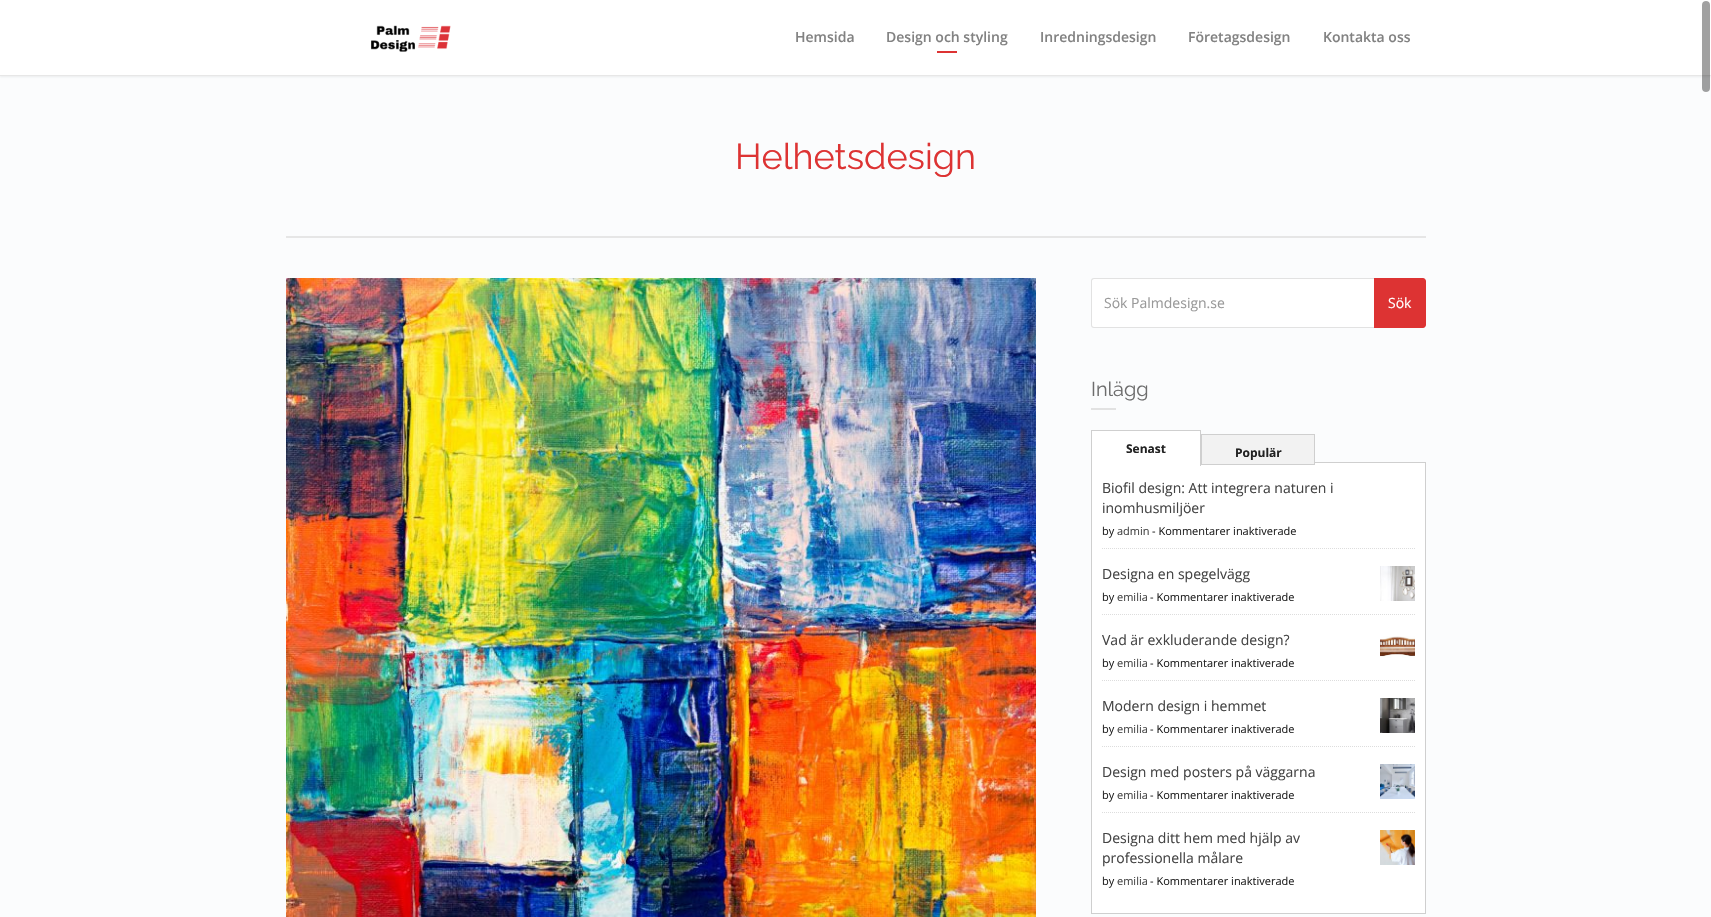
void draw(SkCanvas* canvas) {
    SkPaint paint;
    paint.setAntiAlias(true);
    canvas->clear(0xFFFBFCFD);
    paint.setColor(0x142B3033);
    paint.setMaskFilter(SkMaskFilter::MakeBlur(kNormal_SkBlurStyle, 1));
    canvas->drawRect(SkRect::MakeXYWH(0, 1, 1711, 76), paint);
    paint.setMaskFilter(nullptr);
    paint.setColor(0xFFFFFFFF);
    canvas->drawRect(SkRect::MakeXYWH(0, 0, 1711, 75), paint);
    paint.setColor(0xFFE7E7E7);
    canvas->drawRect(SkRect::MakeXYWH(0, 75, 1711, 1), paint);
    canvas->drawImageRect(SkImages::DeferredFromEncodedData(SkData::MakeFromFileName("img1.png")), SkRect::MakeXYWH(371, 25, 80, 27), SkSamplingOptions());
    SkFont font1(fontMgr->matchFamilyStyle("Open Sans", SkFontStyle(600, SkFontStyle::kNormal_Width, SkFontStyle::kUpright_Slant)), 14);
    font1.setSubpixel(true);
    paint.setColor(0xFF828282);
    canvas->drawString("Hemsida", 795, 42, font1, paint);
    canvas->drawString("Design och styling", 886, 42, font1, paint);
    paint.setColor(0xFFDD3333);
    canvas->drawRect(SkRect::MakeXYWH(937, 51, 20, 2), paint);
    paint.setColor(0xFF828282);
    canvas->drawString("Inredningsdesign", 1040, 42, font1, paint);
    canvas->drawString("Företagsdesign", 1188, 42, font1, paint);
    canvas->drawString("Kontakta oss", 1323, 42, font1, paint);
    paint.setColor(0x5E000000);
    canvas->drawRoundRect(SkRect::MakeXYWH(1702, 1, 8, 91), 4, 4, paint);
    paint.setStyle(SkPaint::kStroke_Style);
    paint.setStrokeWidth(1);
    paint.setColor(0x40FFFFFF);
    canvas->drawRoundRect(SkRect::MakeXYWH(1701.5f, 0.5f, 9, 92), 4.5f, 4.5f, paint);
    paint.setStyle(SkPaint::kFill_Style);
    paint.setColor(0xFFE6E6E6);
    canvas->drawRect(SkRect::MakeXYWH(286, 236, 1140, 2), paint);
    SkFont font2(fontMgr->matchFamilyStyle("Raleway", SkFontStyle::Normal()), 36);
    font2.setSubpixel(true);
    paint.setColor(0xFFDD3333);
    canvas->drawString("Helhetsdesign", 735, 169, font2, paint);
    canvas->drawImageRect(SkImages::DeferredFromEncodedData(SkData::MakeFromFileName("img2.png")), SkRect::MakeXYWH(286, 278, 750, 639), SkSamplingOptions());
    paint.setColor(0xFFFFFFFF);
    canvas->drawPath(SkPathBuilder().moveTo(1094, 278).lineTo(1374, 278).lineTo(1374, 328).lineTo(1094, 328).cubicTo(1092.5f, 328, 1091, 326.5f, 1091, 325).lineTo(1091, 281).cubicTo(1091, 279.5f, 1092.5f, 278, 1094, 278).close().detach(), paint);
    paint.setColor(0xFFE2E2E2);
    canvas->drawPath(SkPathBuilder(SkPathFillType::kEvenOdd).moveTo(1094, 278).lineTo(1374, 278).lineTo(1374, 328).lineTo(1094, 328).cubicTo(1092, 328, 1091, 327, 1091, 325).lineTo(1091, 281).cubicTo(1091, 279, 1092, 278, 1094, 278).close().moveTo(1094, 279).lineTo(1374, 279).lineTo(1374, 327).lineTo(1094, 327).cubicTo(1093, 327, 1092, 326, 1092, 325).lineTo(1092, 281).cubicTo(1092, 280, 1093, 279, 1094, 279).close().detach(), paint);
    SkFont font3(fontMgr->matchFamilyStyle("Open Sans", SkFontStyle::Normal()), 14);
    font3.setSubpixel(true);
    paint.setColor(0xFF999999);
    canvas->drawString("Sök Palmdesign.se", 1104, 308, font3, paint);
    paint.setColor(0xFFDD3333);
    canvas->drawPath(SkPathBuilder().moveTo(1374, 278).lineTo(1423, 278).cubicTo(1424.5f, 278, 1426, 279.5f, 1426, 281).lineTo(1426, 325).cubicTo(1426, 326.5f, 1424.5f, 328, 1423, 328).lineTo(1374, 328).close().detach(), paint);
    paint.setColor(0xFFFFFFFF);
    canvas->drawString("Sök", 1388, 308, font3, paint);
    SkFont font4(fontMgr->matchFamilyStyle("Raleway", SkFontStyle::Normal()), 20);
    font4.setSubpixel(true);
    paint.setColor(0xFF6D6D6D);
    canvas->drawString("Inlägg", 1091, 396, font4, paint);
    paint.setColor(0xFFE2E2E2);
    canvas->drawRect(SkRect::MakeXYWH(1091, 408, 25, 2), paint);
    paint.setColor(0xFFCFCFCF);
    canvas->drawRect(SkRect::MakeXYWH(1315, 462, 111, 1), paint);
    paint.setColor(0xFFFFFFFF);
    canvas->drawRect(SkRect::MakeXYWH(1092, 431, 108, 32), paint);
    paint.setColor(0xFFCFCFCF);
    canvas->drawRect(SkRect::MakeXYWH(1091, 430, 110, 1), paint);
    paint.setColor(0xFFFFFFFF);
    canvas->drawRect(SkRect::MakeXYWH(1092, 463, 333, 450), paint);
    paint.setColor(0xFFCFCFCF);
    canvas->drawRect(SkRect::MakeXYWH(1200, 430, 1, 36), paint);
    canvas->drawRect(SkRect::MakeXYWH(1425, 463, 1, 451), paint);
    canvas->drawRect(SkRect::MakeXYWH(1091, 913, 335, 1), paint);
    canvas->drawRect(SkRect::MakeXYWH(1091, 463, 1, 451), paint);
    canvas->drawRect(SkRect::MakeXYWH(1091, 430, 1, 36), paint);
    SkFont font5(fontMgr->matchFamilyStyle("Open Sans", SkFontStyle::Bold()), 12);
    font5.setSubpixel(true);
    paint.setColor(0xFF222222);
    canvas->drawString("Senast", 1126, 453, font5, paint);
    paint.setColor(0xFFF2F2F2);
    canvas->drawRect(SkRect::MakeXYWH(1201.5f, 434.5f, 113, 30), paint);
    paint.setStyle(SkPaint::kStroke_Style);
    paint.setColor(0xFFCFCFCF);
    canvas->drawRect(SkRect::MakeXYWH(1201.5f, 434.5f, 113, 30), paint);
    paint.setStyle(SkPaint::kFill_Style);
    paint.setColor(0xFF222222);
    canvas->drawString("Populär", 1235, 457, font5, paint);
    paint.setStyle(SkPaint::kStroke_Style);
    paint.setColor(0xFFDDDDDD);
    paint.setPathEffect(SkDashPathEffect::Make({{1, 1}}, 0));
    canvas->drawPath(SkPathBuilder().moveTo(1102, 548.5f).lineTo(1415, 548.5f).detach(), paint);
    paint.setPathEffect(nullptr);
    paint.setStyle(SkPaint::kFill_Style);
    paint.setColor(0xFF444444);
    canvas->drawString("Biofil design: Att integrera naturen i", 1102, 493, font3, paint);
    canvas->drawString("inomhusmiljöer", 1102, 513, font3, paint);
    SkFont font6(fontMgr->matchFamilyStyle("Open Sans", SkFontStyle::Normal()), 11);
    font6.setSubpixel(true);
    paint.setColor(0xFF222222);
    canvas->drawString("by", 1102, 535, font6, paint);
    paint.setColor(0xFF444444);
    canvas->drawString("admin", 1117, 535, font6, paint);
    paint.setColor(0xFF222222);
    canvas->drawString("- Kommentarer inaktiverade", 1152, 535, font6, paint);
    paint.setStyle(SkPaint::kStroke_Style);
    paint.setColor(0xFFDDDDDD);
    paint.setPathEffect(SkDashPathEffect::Make({{1, 1}}, 0));
    canvas->drawPath(SkPathBuilder().moveTo(1102, 614.5f).lineTo(1415, 614.5f).detach(), paint);
    paint.setPathEffect(nullptr);
    paint.setStyle(SkPaint::kFill_Style);
    paint.setColor(0xFF444444);
    canvas->drawString("Designa en spegelvägg", 1102, 579, font3, paint);
    canvas->drawImageRect(SkImages::DeferredFromEncodedData(SkData::MakeFromFileName("img3.png")), SkRect::MakeXYWH(1380, 566, 35, 35), SkSamplingOptions());
    paint.setColor(0xFF222222);
    canvas->drawString("by", 1102, 601, font6, paint);
    paint.setColor(0xFF444444);
    canvas->drawString("emilia", 1117, 601, font6, paint);
    paint.setColor(0xFF222222);
    canvas->drawString("- Kommentarer inaktiverade", 1150, 601, font6, paint);
    paint.setStyle(SkPaint::kStroke_Style);
    paint.setColor(0xFFDDDDDD);
    paint.setPathEffect(SkDashPathEffect::Make({{1, 1}}, 0));
    canvas->drawPath(SkPathBuilder().moveTo(1102, 680.5f).lineTo(1415, 680.5f).detach(), paint);
    paint.setPathEffect(nullptr);
    paint.setStyle(SkPaint::kFill_Style);
    paint.setColor(0xFF444444);
    canvas->drawString("Vad är exkluderande design?", 1102, 645, font3, paint);
    canvas->drawImageRect(SkImages::DeferredFromEncodedData(SkData::MakeFromFileName("img4.png")), SkRect::MakeXYWH(1380, 636, 35, 22), SkSamplingOptions());
    paint.setColor(0xFF222222);
    canvas->drawString("by", 1102, 667, font6, paint);
    paint.setColor(0xFF444444);
    canvas->drawString("emilia", 1117, 667, font6, paint);
    paint.setColor(0xFF222222);
    canvas->drawString("- Kommentarer inaktiverade", 1150, 667, font6, paint);
    paint.setStyle(SkPaint::kStroke_Style);
    paint.setColor(0xFFDDDDDD);
    paint.setPathEffect(SkDashPathEffect::Make({{1, 1}}, 0));
    canvas->drawPath(SkPathBuilder().moveTo(1102, 746.5f).lineTo(1415, 746.5f).detach(), paint);
    paint.setPathEffect(nullptr);
    paint.setStyle(SkPaint::kFill_Style);
    paint.setColor(0xFF444444);
    canvas->drawString("Modern design i hemmet", 1102, 711, font3, paint);
    canvas->drawImageRect(SkImages::DeferredFromEncodedData(SkData::MakeFromFileName("img5.png")), SkRect::MakeXYWH(1380, 698, 35, 35), SkSamplingOptions());
    paint.setColor(0xFF222222);
    canvas->drawString("by", 1102, 733, font6, paint);
    paint.setColor(0xFF444444);
    canvas->drawString("emilia", 1117, 733, font6, paint);
    paint.setColor(0xFF222222);
    canvas->drawString("- Kommentarer inaktiverade", 1150, 733, font6, paint);
    paint.setStyle(SkPaint::kStroke_Style);
    paint.setColor(0xFFDDDDDD);
    paint.setPathEffect(SkDashPathEffect::Make({{1, 1}}, 0));
    canvas->drawPath(SkPathBuilder().moveTo(1102, 812.5f).lineTo(1415, 812.5f).detach(), paint);
    paint.setPathEffect(nullptr);
    paint.setStyle(SkPaint::kFill_Style);
    paint.setColor(0xFF444444);
    canvas->drawString("Design med posters på väggarna", 1102, 777, font3, paint);
    canvas->drawImageRect(SkImages::DeferredFromEncodedData(SkData::MakeFromFileName("img6.png")), SkRect::MakeXYWH(1380, 764, 35, 35), SkSamplingOptions());
    paint.setColor(0xFF222222);
    canvas->drawString("by", 1102, 799, font6, paint);
    paint.setColor(0xFF444444);
    canvas->drawString("emilia", 1117, 799, font6, paint);
    paint.setColor(0xFF222222);
    canvas->drawString("- Kommentarer inaktiverade", 1150, 799, font6, paint);
    paint.setColor(0xFF444444);
    canvas->drawString("Designa ditt hem med hjälp av", 1102, 843, font3, paint);
    canvas->drawImageRect(SkImages::DeferredFromEncodedData(SkData::MakeFromFileName("img7.png")), SkRect::MakeXYWH(1380, 830, 35, 35), SkSamplingOptions());
    canvas->drawString("professionella målare", 1102, 863, font3, paint);
    paint.setColor(0xFF222222);
    canvas->drawString("by", 1102, 885, font6, paint);
    paint.setColor(0xFF444444);
    canvas->drawString("emilia", 1117, 885, font6, paint);
    paint.setColor(0xFF222222);
    canvas->drawString("- Kommentarer inaktiverade", 1150, 885, font6, paint);
}
